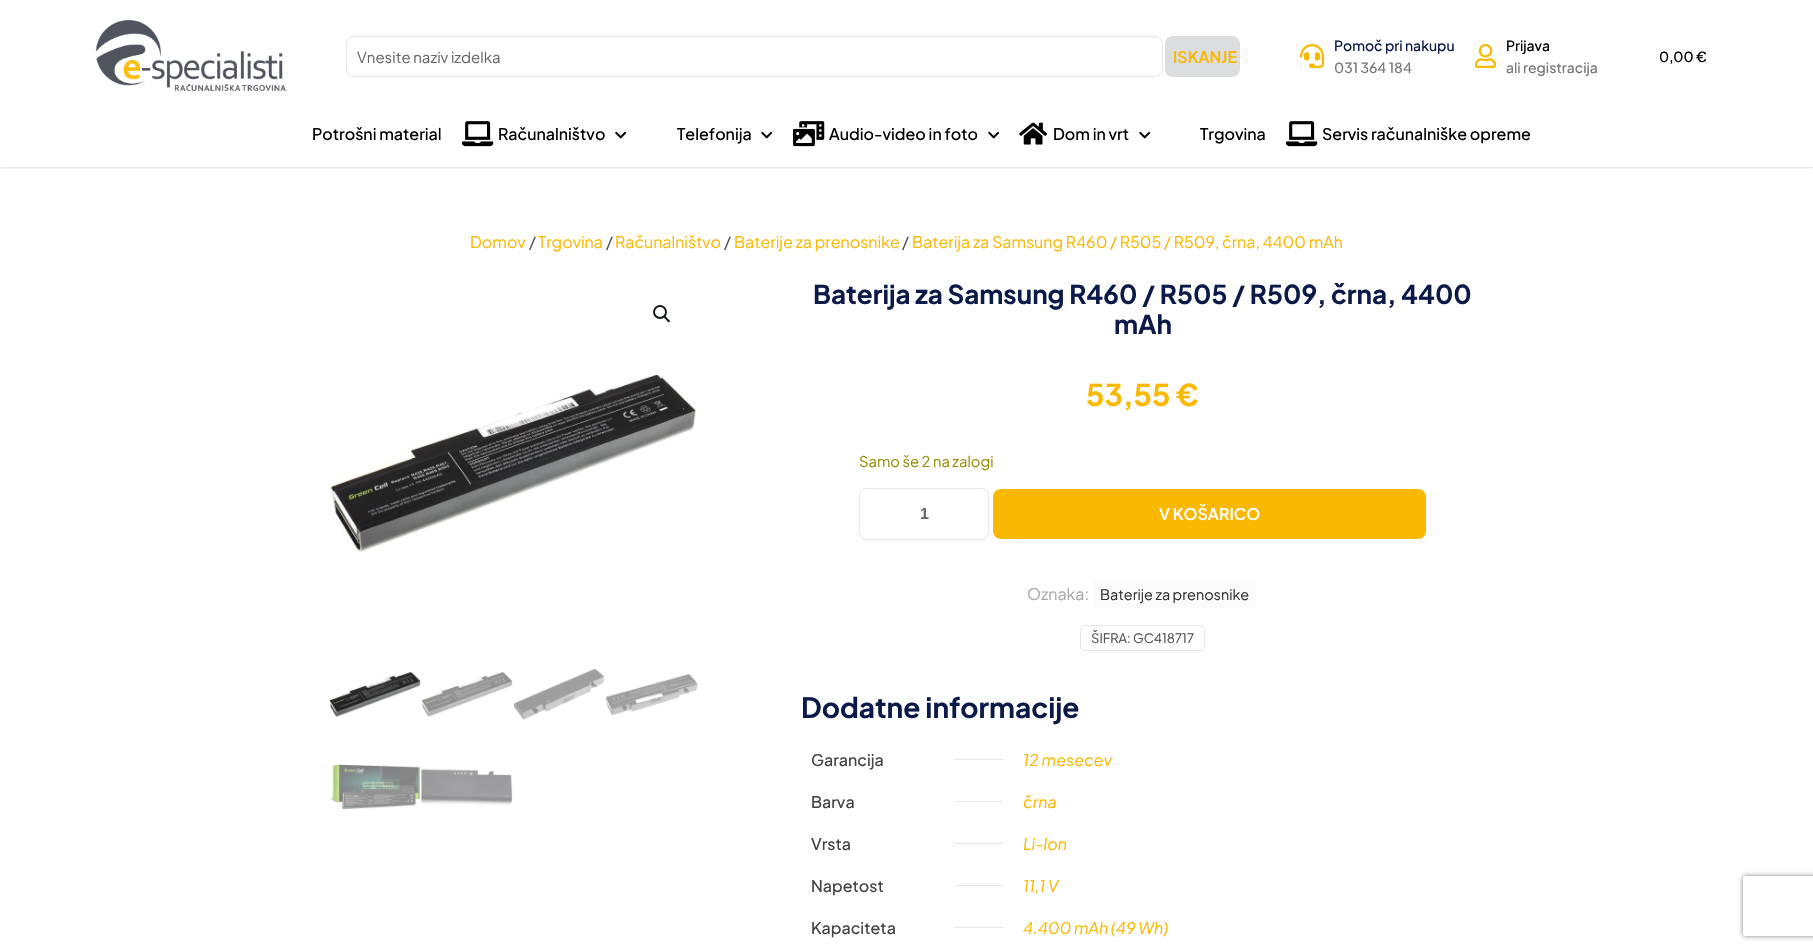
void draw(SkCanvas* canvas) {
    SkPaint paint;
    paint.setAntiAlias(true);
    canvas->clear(0xFFFFFFFF);
    canvas->drawImageRect(SkImages::DeferredFromEncodedData(SkData::MakeFromFileName("img1.png")), SkRect::MakeXYWH(95, 20, 191, 71), SkSamplingOptions());
    paint.setStyle(SkPaint::kStroke_Style);
    paint.setStrokeWidth(1);
    paint.setColor(0xFFE7E7E7);
    canvas->drawRoundRect(SkRect::MakeXYWH(346.5f, 36.5f, 816, 40), 7.5f, 7.5f, paint);
    SkFont font1(fontMgr->matchFamilyStyle("Plus Jakarta Sans", SkFontStyle::Normal()), 15);
    font1.setSubpixel(true);
    paint.setStyle(SkPaint::kFill_Style);
    paint.setColor(0xFF686868);
    canvas->drawString("Vnesite naziv izdelka", 357, 63, font1, paint);
    paint.setColor(0xFFDBDDDF);
    canvas->drawRoundRect(SkRect::MakeXYWH(1165, 36, 75, 41), 8, 8, paint);
    SkFont font2(fontMgr->matchFamilyStyle("Plus Jakarta Sans", SkFontStyle(600, SkFontStyle::kNormal_Width, SkFontStyle::kUpright_Slant)), 16);
    font2.setSubpixel(true);
    paint.setColor(0xFFFAB800);
    canvas->drawString("ISKANJE", 1173, 63, font2, paint);
    canvas->drawImageRect(SkImages::DeferredFromEncodedData(SkData::MakeFromFileName("img2.png")), SkRect::MakeXYWH(1300, 44, 24, 24), SkSamplingOptions());
    SkFont font3(fontMgr->matchFamilyStyle("Plus Jakarta Sans", SkFontStyle(500, SkFontStyle::kNormal_Width, SkFontStyle::kUpright_Slant)), 14);
    font3.setSubpixel(true);
    paint.setColor(0xFF0B1A48);
    canvas->drawString("Pomoč pri nakupu", 1334, 51, font3, paint);
    paint.setColor(0xFF797979);
    canvas->drawString("031 364 184", 1334, 73, font3, paint);
    canvas->drawImageRect(SkImages::DeferredFromEncodedData(SkData::MakeFromFileName("img3.png")), SkRect::MakeXYWH(1475, 44, 21, 24), SkSamplingOptions());
    paint.setColor(0xFF000000);
    canvas->drawString("Prijava", 1506, 51, font3, paint);
    paint.setColor(0xFF797979);
    canvas->drawString("ali registracija", 1506, 73, font3, paint);
    paint.setColor(0xFF000000);
    canvas->drawString("0,00 €", 1659, 62, font3, paint);
    canvas->save();
    canvas->clipRect(SkRect::MakeXYWH(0, 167, 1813, 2));
    paint.setColor(0x1F000000);
    paint.setMaskFilter(SkMaskFilter::MakeBlur(kNormal_SkBlurStyle, 1));
    canvas->drawRect(SkRect::MakeXYWH(0, 104, 1813, 64), paint);
    paint.setMaskFilter(nullptr);
    canvas->restore();
    SkFont font4(fontMgr->matchFamilyStyle("Plus Jakarta Sans", SkFontStyle(500, SkFontStyle::kNormal_Width, SkFontStyle::kUpright_Slant)), 16);
    font4.setSubpixel(true);
    paint.setColor(0xFF000000);
    canvas->drawString("Potrošni material", 312, 140, font4, paint);
    canvas->drawImageRect(SkImages::DeferredFromEncodedData(SkData::MakeFromFileName("img4.png")), SkRect::MakeXYWH(462, 121, 32, 26), SkSamplingOptions());
    canvas->drawString("Računalništvo", 498, 140, font4, paint);
    canvas->drawImageRect(SkImages::DeferredFromEncodedData(SkData::MakeFromFileName("img5.png")), SkRect::MakeXYWH(615, 131, 12, 8), SkSamplingOptions());
    canvas->drawString("Telefonija", 677, 140, font4, paint);
    canvas->drawImageRect(SkImages::DeferredFromEncodedData(SkData::MakeFromFileName("img5.png")), SkRect::MakeXYWH(761, 131, 12, 8), SkSamplingOptions());
    canvas->drawImageRect(SkImages::DeferredFromEncodedData(SkData::MakeFromFileName("img6.png")), SkRect::MakeXYWH(793, 121, 32, 26), SkSamplingOptions());
    canvas->drawString("Audio-video in foto", 829, 140, font4, paint);
    canvas->drawImageRect(SkImages::DeferredFromEncodedData(SkData::MakeFromFileName("img5.png")), SkRect::MakeXYWH(988, 131, 12, 8), SkSamplingOptions());
    canvas->drawImageRect(SkImages::DeferredFromEncodedData(SkData::MakeFromFileName("img7.png")), SkRect::MakeXYWH(1019, 122, 29, 23), SkSamplingOptions());
    canvas->drawString("Dom in vrt", 1053, 140, font4, paint);
    canvas->drawImageRect(SkImages::DeferredFromEncodedData(SkData::MakeFromFileName("img5.png")), SkRect::MakeXYWH(1139, 131, 12, 8), SkSamplingOptions());
    canvas->drawString("Trgovina", 1200, 140, font4, paint);
    canvas->drawImageRect(SkImages::DeferredFromEncodedData(SkData::MakeFromFileName("img4.png")), SkRect::MakeXYWH(1286, 121, 32, 26), SkSamplingOptions());
    canvas->drawString("Servis računalniške opreme", 1322, 140, font4, paint);
    SkFont font5(fontMgr->matchFamilyStyle("Plus Jakarta Sans", SkFontStyle::Normal()), 16);
    font5.setSubpixel(true);
    paint.setColor(0xFFFAB800);
    canvas->drawString("Domov", 470, 248, font5, paint);
    paint.setColor(0xFF4C4D52);
    canvas->drawString("/", 529, 248, font5, paint);
    paint.setColor(0xFFFAB800);
    canvas->drawString("Trgovina", 538, 248, font5, paint);
    paint.setColor(0xFF4C4D52);
    canvas->drawString("/", 606, 248, font5, paint);
    paint.setColor(0xFFFAB800);
    canvas->drawString("Računalništvo", 615, 248, font5, paint);
    paint.setColor(0xFF4C4D52);
    canvas->drawString("/", 724, 248, font5, paint);
    paint.setColor(0xFFFAB800);
    canvas->drawString("Baterije za prenosnike", 734, 248, font5, paint);
    paint.setColor(0xFF4C4D52);
    canvas->drawString("/", 902, 248, font5, paint);
    paint.setColor(0xFFFAB800);
    canvas->drawString("Baterija za Samsung R460 / R505 / R509, črna, 4400 mAh", 912, 248, font5, paint);
    paint.setStyle(SkPaint::kStroke_Style);
    paint.setStrokeWidth(2);
    paint.setColor(0xFF161922);
    canvas->drawCircle(660, 312, 6, paint);
    paint.setStyle(SkPaint::kFill_Style);
    canvas->drawPath(SkPathBuilder().moveTo(664, 316).cubicTo(665, 315, 667, 317.5f, 667.5f, 318.5f).cubicTo(668, 319, 671, 320.5f, 669.5f, 322).cubicTo(668.5f, 323, 666.5f, 320.5f, 666, 319.5f).cubicTo(665.5f, 319, 663, 317.5f, 664, 316).close().detach(), paint);
    canvas->drawImageRect(SkImages::DeferredFromEncodedData(SkData::MakeFromFileName("img8.png")), SkRect::MakeXYWH(330, 374, 367, 179), SkSamplingOptions());
    canvas->drawImageRect(SkImages::DeferredFromEncodedData(SkData::MakeFromFileName("img9.png")), SkRect::MakeXYWH(329, 672, 92, 45), SkSamplingOptions());
    canvas->drawImageRect(SkImages::DeferredFromEncodedData(SkData::MakeFromFileName("img10.png")), SkRect::MakeXYWH(421, 672, 92, 45), SkSamplingOptions());
    canvas->drawImageRect(SkImages::DeferredFromEncodedData(SkData::MakeFromFileName("img11.png")), SkRect::MakeXYWH(513, 668, 92, 52), SkSamplingOptions());
    canvas->drawImageRect(SkImages::DeferredFromEncodedData(SkData::MakeFromFileName("img12.png")), SkRect::MakeXYWH(605, 674, 93, 42), SkSamplingOptions());
    canvas->drawImageRect(SkImages::DeferredFromEncodedData(SkData::MakeFromFileName("img13.png")), SkRect::MakeXYWH(330, 764, 91, 46), SkSamplingOptions());
    canvas->drawImageRect(SkImages::DeferredFromEncodedData(SkData::MakeFromFileName("img14.png")), SkRect::MakeXYWH(421, 769, 92, 36), SkSamplingOptions());
    SkFont font6(fontMgr->matchFamilyStyle("Plus Jakarta Sans", SkFontStyle::Bold()), 26);
    font6.setSubpixel(true);
    paint.setColor(0xFF0B1A48);
    canvas->drawString("Baterija za Samsung R460 / R505 / R509, črna, 4400", 813, 304, font6, paint);
    canvas->drawString("mAh", 1114, 334, font6, paint);
    SkFont font7(fontMgr->matchFamilyStyle("Plus Jakarta Sans", SkFontStyle::Bold()), 30);
    font7.setSubpixel(true);
    paint.setColor(0xFFFAB800);
    canvas->drawString("53,55 €", 1086, 406, font7, paint);
    SkFont font8(fontMgr->matchFamilyStyle("Plus Jakarta Sans", SkFontStyle::Normal()), 14.75f);
    font8.setSubpixel(true);
    paint.setColor(0xFF958E09);
    canvas->drawString("Samo še 2 na zalogi", 859, 467, font8, paint);
    paint.setStyle(SkPaint::kStroke_Style);
    paint.setStrokeWidth(1);
    paint.setColor(0xFFE7E7E7);
    canvas->drawRoundRect(SkRect::MakeXYWH(859.5f, 488.5f, 129, 51), 7.5f, 7.5f, paint);
    SkFont font9(fontMgr->matchFamilyStyle("Liberation Sans", SkFontStyle::Bold()), 16);
    font9.setSubpixel(true);
    paint.setStyle(SkPaint::kFill_Style);
    paint.setColor(0xFF686868);
    canvas->drawString("1", 920, 519, font9, paint);
    paint.setColor(0xFFFAB800);
    canvas->drawRoundRect(SkRect::MakeXYWH(993, 489, 433, 50), 8, 8, paint);
    paint.setColor(0xFFFFFFFF);
    canvas->drawString("V KOŠARICO", 1159, 520, font2, paint);
    paint.setColor(0xFFA8A8A8);
    canvas->drawString("Oznaka:", 1027, 600, font5, paint);
    paint.setColor(0xFFFAFAFA);
    canvas->drawRoundRect(SkRect::MakeXYWH(1093, 580, 163, 28), 4, 4, paint);
    SkFont font10(fontMgr->matchFamilyStyle("Plus Jakarta Sans", SkFontStyle::Normal()), 14.4f);
    font10.setSubpixel(true);
    paint.setColor(0xFF323232);
    canvas->drawString("Baterije za prenosnike", 1100, 600, font10, paint);
    paint.setStyle(SkPaint::kStroke_Style);
    paint.setColor(0xFFE6E6E6);
    canvas->drawRoundRect(SkRect::MakeXYWH(1080.5f, 625.5f, 124, 25), 4.5f, 4.5f, paint);
    SkFont font11(fontMgr->matchFamilyStyle("Plus Jakarta Sans", SkFontStyle::Normal()), 13);
    font11.setSubpixel(true);
    paint.setStyle(SkPaint::kFill_Style);
    paint.setColor(0xFF4C4D52);
    canvas->drawString("ŠIFRA: GC418717", 1091, 643, font11, paint);
    SkFont font12(fontMgr->matchFamilyStyle("Plus Jakarta Sans", SkFontStyle::Bold()), 28);
    font12.setSubpixel(true);
    paint.setColor(0xFF0B1A48);
    canvas->drawString("Dodatne informacije", 801, 718, font12, paint);
    paint.setColor(0xFF444444);
    canvas->drawString("Garancija", 811, 766, font4, paint);
    paint.setColor(0xFFE6E6E6);
    canvas->drawRect(SkRect::MakeXYWH(955, 759, 48, 1), paint);
    SkFont font13(fontMgr->matchFamilyStyle("Plus Jakarta Sans", SkFontStyle::Italic()), 16);
    font13.setSubpixel(true);
    paint.setColor(0xFFFAB800);
    canvas->drawString("12 mesecev", 1023, 766, font13, paint);
    paint.setColor(0xFF444444);
    canvas->drawString("Barva", 811, 808, font4, paint);
    paint.setColor(0xFFE6E6E6);
    canvas->drawRect(SkRect::MakeXYWH(955, 801, 48, 1), paint);
    paint.setColor(0xFFFAB800);
    canvas->drawString("črna", 1023, 808, font13, paint);
    paint.setColor(0xFF444444);
    canvas->drawString("Vrsta", 811, 850, font4, paint);
    paint.setColor(0xFFE6E6E6);
    canvas->drawRect(SkRect::MakeXYWH(955, 843, 48, 1), paint);
    paint.setColor(0xFFFAB800);
    canvas->drawString("Li-Ion", 1023, 850, font13, paint);
    paint.setColor(0xFF444444);
    canvas->drawString("Napetost", 811, 892, font4, paint);
    paint.setColor(0xFFE6E6E6);
    canvas->drawRect(SkRect::MakeXYWH(955, 885, 48, 1), paint);
    paint.setColor(0xFFFAB800);
    canvas->drawString("11,1 V", 1023, 892, font13, paint);
    paint.setColor(0xFF444444);
    canvas->drawString("Kapaciteta", 811, 934, font4, paint);
    paint.setColor(0xFFE6E6E6);
    canvas->drawRect(SkRect::MakeXYWH(955, 927, 48, 1), paint);
    paint.setColor(0xFFFAB800);
    canvas->drawString("4.400 mAh (49 Wh)", 1023, 934, font13, paint);
    canvas->save();
    canvas->clipPath(SkPathBuilder(SkPathFillType::kEvenOdd).moveTo(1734, 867).lineTo(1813, 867).lineTo(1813, 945).lineTo(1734, 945).close().moveTo(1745, 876).lineTo(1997, 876).cubicTo(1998, 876, 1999, 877, 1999, 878).lineTo(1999, 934).cubicTo(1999, 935, 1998, 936, 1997, 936).lineTo(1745, 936).cubicTo(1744, 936, 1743, 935, 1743, 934).lineTo(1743, 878).cubicTo(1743, 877, 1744, 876, 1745, 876).close().detach(), true);
    paint.setColor(0xFF808080);
    paint.setMaskFilter(SkMaskFilter::MakeBlur(kNormal_SkBlurStyle, 2.5f));
    canvas->drawRoundRect(SkRect::MakeXYWH(1743, 876, 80, 60), 2, 2, paint);
    paint.setMaskFilter(nullptr);
    canvas->restore();
}
